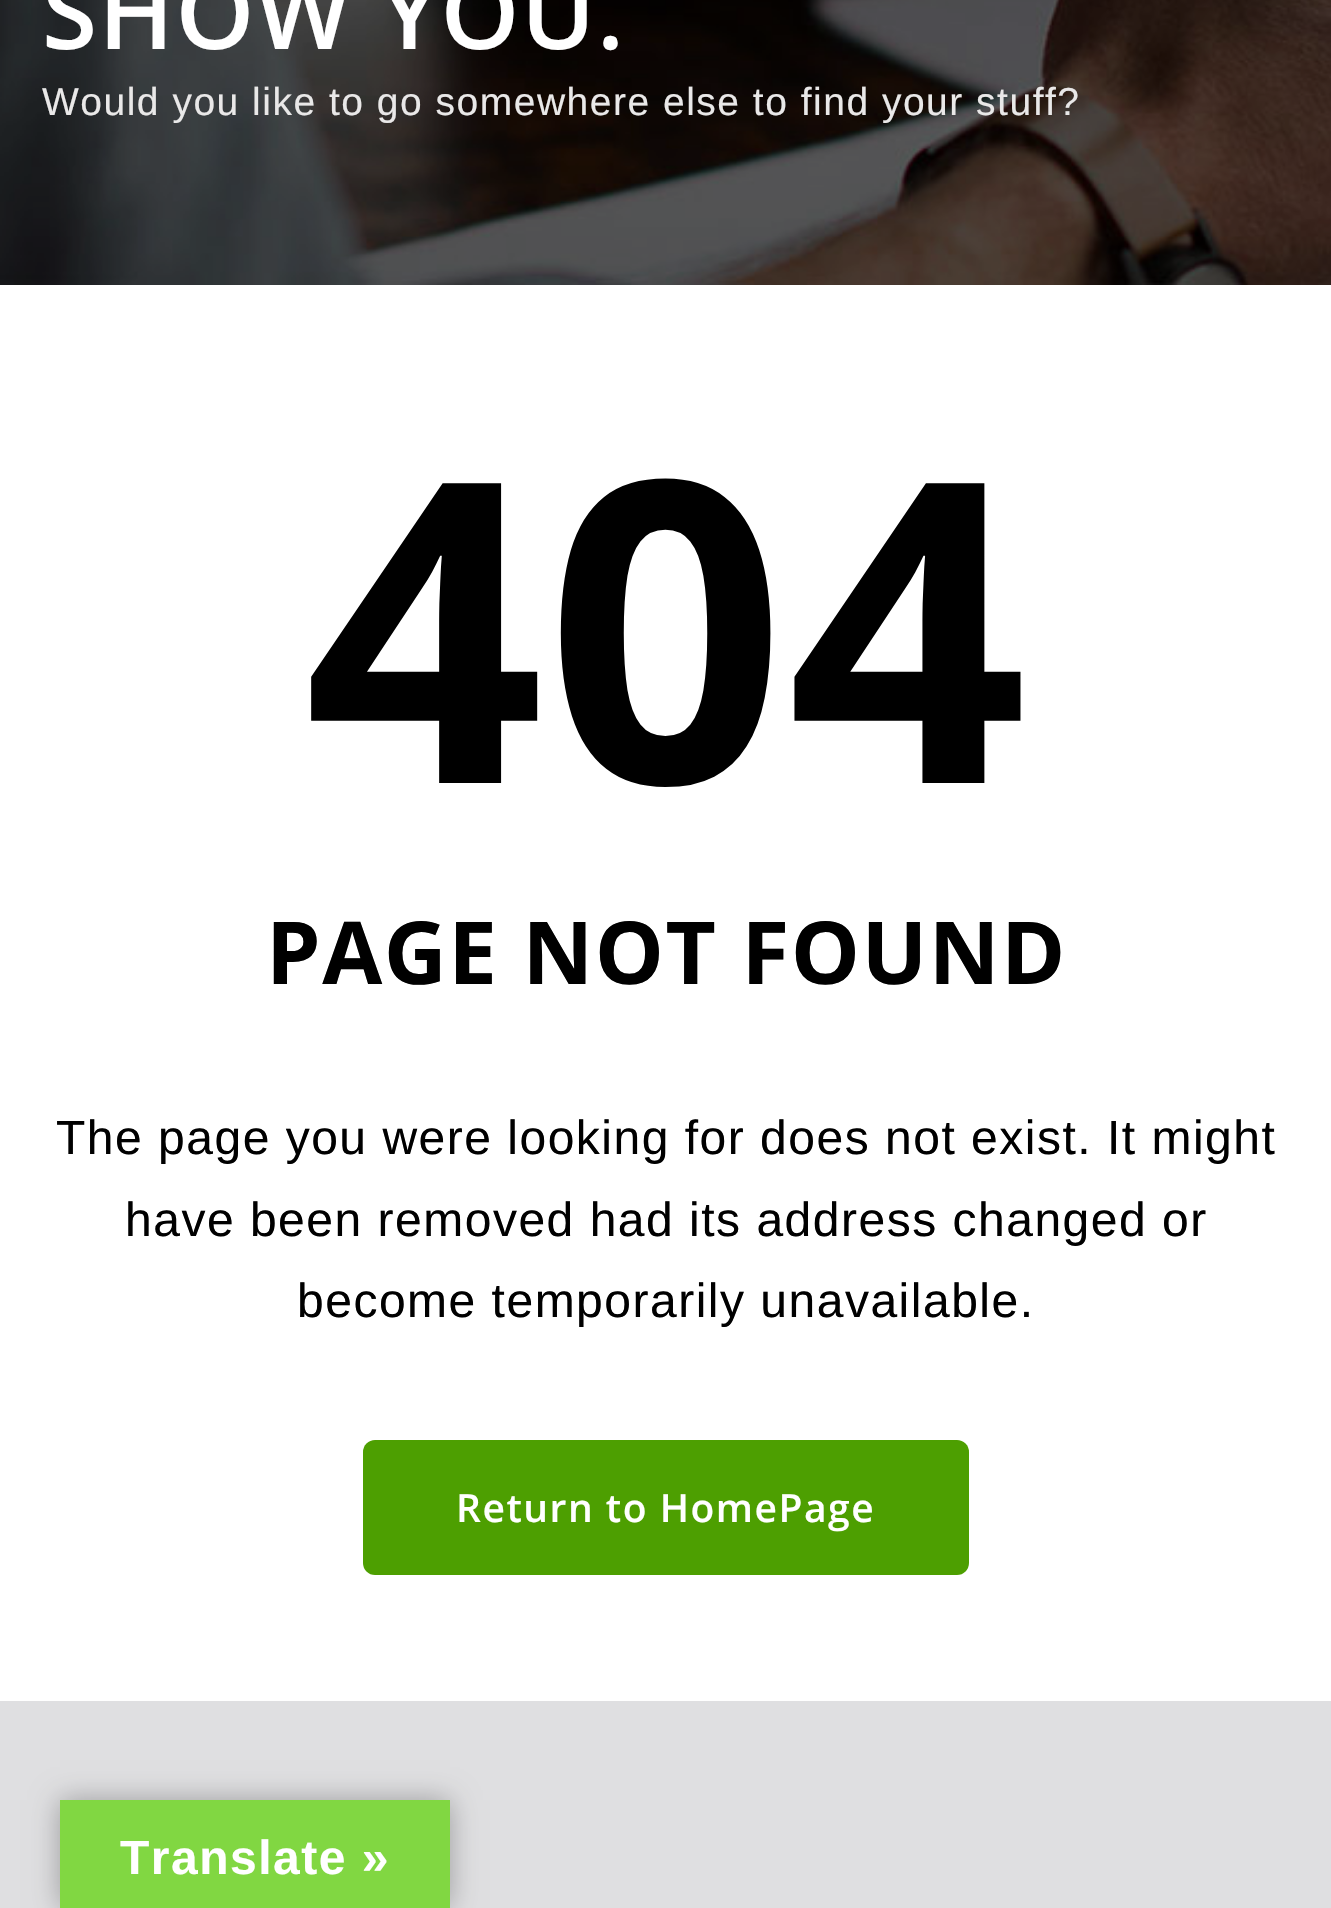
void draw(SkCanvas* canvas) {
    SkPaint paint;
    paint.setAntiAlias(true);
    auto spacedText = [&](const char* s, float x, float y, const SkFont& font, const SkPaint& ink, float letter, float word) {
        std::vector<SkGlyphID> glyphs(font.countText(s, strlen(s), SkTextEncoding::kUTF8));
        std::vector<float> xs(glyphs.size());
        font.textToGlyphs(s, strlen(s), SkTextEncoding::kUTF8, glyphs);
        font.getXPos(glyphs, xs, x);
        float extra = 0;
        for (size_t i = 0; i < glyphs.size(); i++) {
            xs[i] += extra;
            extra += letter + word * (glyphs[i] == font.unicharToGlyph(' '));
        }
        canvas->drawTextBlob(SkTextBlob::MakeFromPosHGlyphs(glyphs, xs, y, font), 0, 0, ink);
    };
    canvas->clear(0xFFFFFFFF);
    canvas->drawImageRect(SkImages::DeferredFromEncodedData(SkData::MakeFromFileName("img1.png")), SkRect::MakeXYWH(0, 0, 1331, 285), SkSamplingOptions());
    SkFont font1(fontMgr->matchFamilyStyle("Open Sans", SkFontStyle(600, SkFontStyle::kNormal_Width, SkFontStyle::kUpright_Slant)), 100.25f);
    font1.setSubpixel(true);
    paint.setColor(0xFFFFFFFF);
    spacedText("SHOW YOU.", 42, 49, font1, paint, 1.5f, 0);
    SkFont font2(fontMgr->matchFamilyStyle("Liberation Sans", SkFontStyle::Normal()), 39);
    font2.setSubpixel(true);
    paint.setColor(0xFFE9E8E8);
    spacedText("Would you like to go somewhere else to find your stuff?", 42, 115, font2, paint, 1.5f, 0);
    SkFont font3(fontMgr->matchFamilyStyle("Open Sans", SkFontStyle::Bold()), 420);
    font3.setSubpixel(true);
    paint.setColor(0xFF000000);
    spacedText("404", 304, 783, font3, paint, 1.5f, 0);
    SkFont font4(fontMgr->matchFamilyStyle("Open Sans", SkFontStyle::Bold()), 87);
    font4.setSubpixel(true);
    spacedText("PAGE NOT FOUND", 266, 984, font4, paint, 1.5f, 0);
    SkFont font5(fontMgr->matchFamilyStyle("Liberation Sans", SkFontStyle::Normal()), 48);
    font5.setSubpixel(true);
    spacedText("The page you were looking for does not exist. It might", 56, 1154, font5, paint, 1.5f, 0);
    spacedText("have been removed had its address changed or", 125, 1236, font5, paint, 1.5f, 0);
    spacedText("become temporarily unavailable.", 297, 1317, font5, paint, 1.5f, 0);
    paint.setColor(0xFF4D9F01);
    canvas->drawRoundRect(SkRect::MakeXYWH(363, 1440, 606, 135), 12, 12, paint);
    SkFont font6(fontMgr->matchFamilyStyle("Open Sans", SkFontStyle(600, SkFontStyle::kNormal_Width, SkFontStyle::kUpright_Slant)), 39);
    font6.setSubpixel(true);
    paint.setColor(0xFFFFFFFF);
    spacedText("Return to HomePage", 456, 1522, font6, paint, 1.5f, 0);
    paint.setColor(0xFFDFDFE1);
    canvas->drawRect(SkRect::MakeXYWH(0, 1701, 1331, 207), paint);
    paint.setColor(0x4D000000);
    paint.setMaskFilter(SkMaskFilter::MakeBlur(kNormal_SkBlurStyle, 13.5f));
    canvas->drawRect(SkRect::MakeXYWH(60, 1800, 390, 108), paint);
    paint.setMaskFilter(nullptr);
    paint.setColor(0xFF81D742);
    canvas->drawRect(SkRect::MakeXYWH(60, 1800, 390, 108), paint);
    SkFont font7(fontMgr->matchFamilyStyle("Liberation Sans", SkFontStyle::Bold()), 48);
    font7.setSubpixel(true);
    paint.setColor(0xFFFFFFFF);
    spacedText("Translate »", 120, 1874, font7, paint, 1.5f, 0);
}
